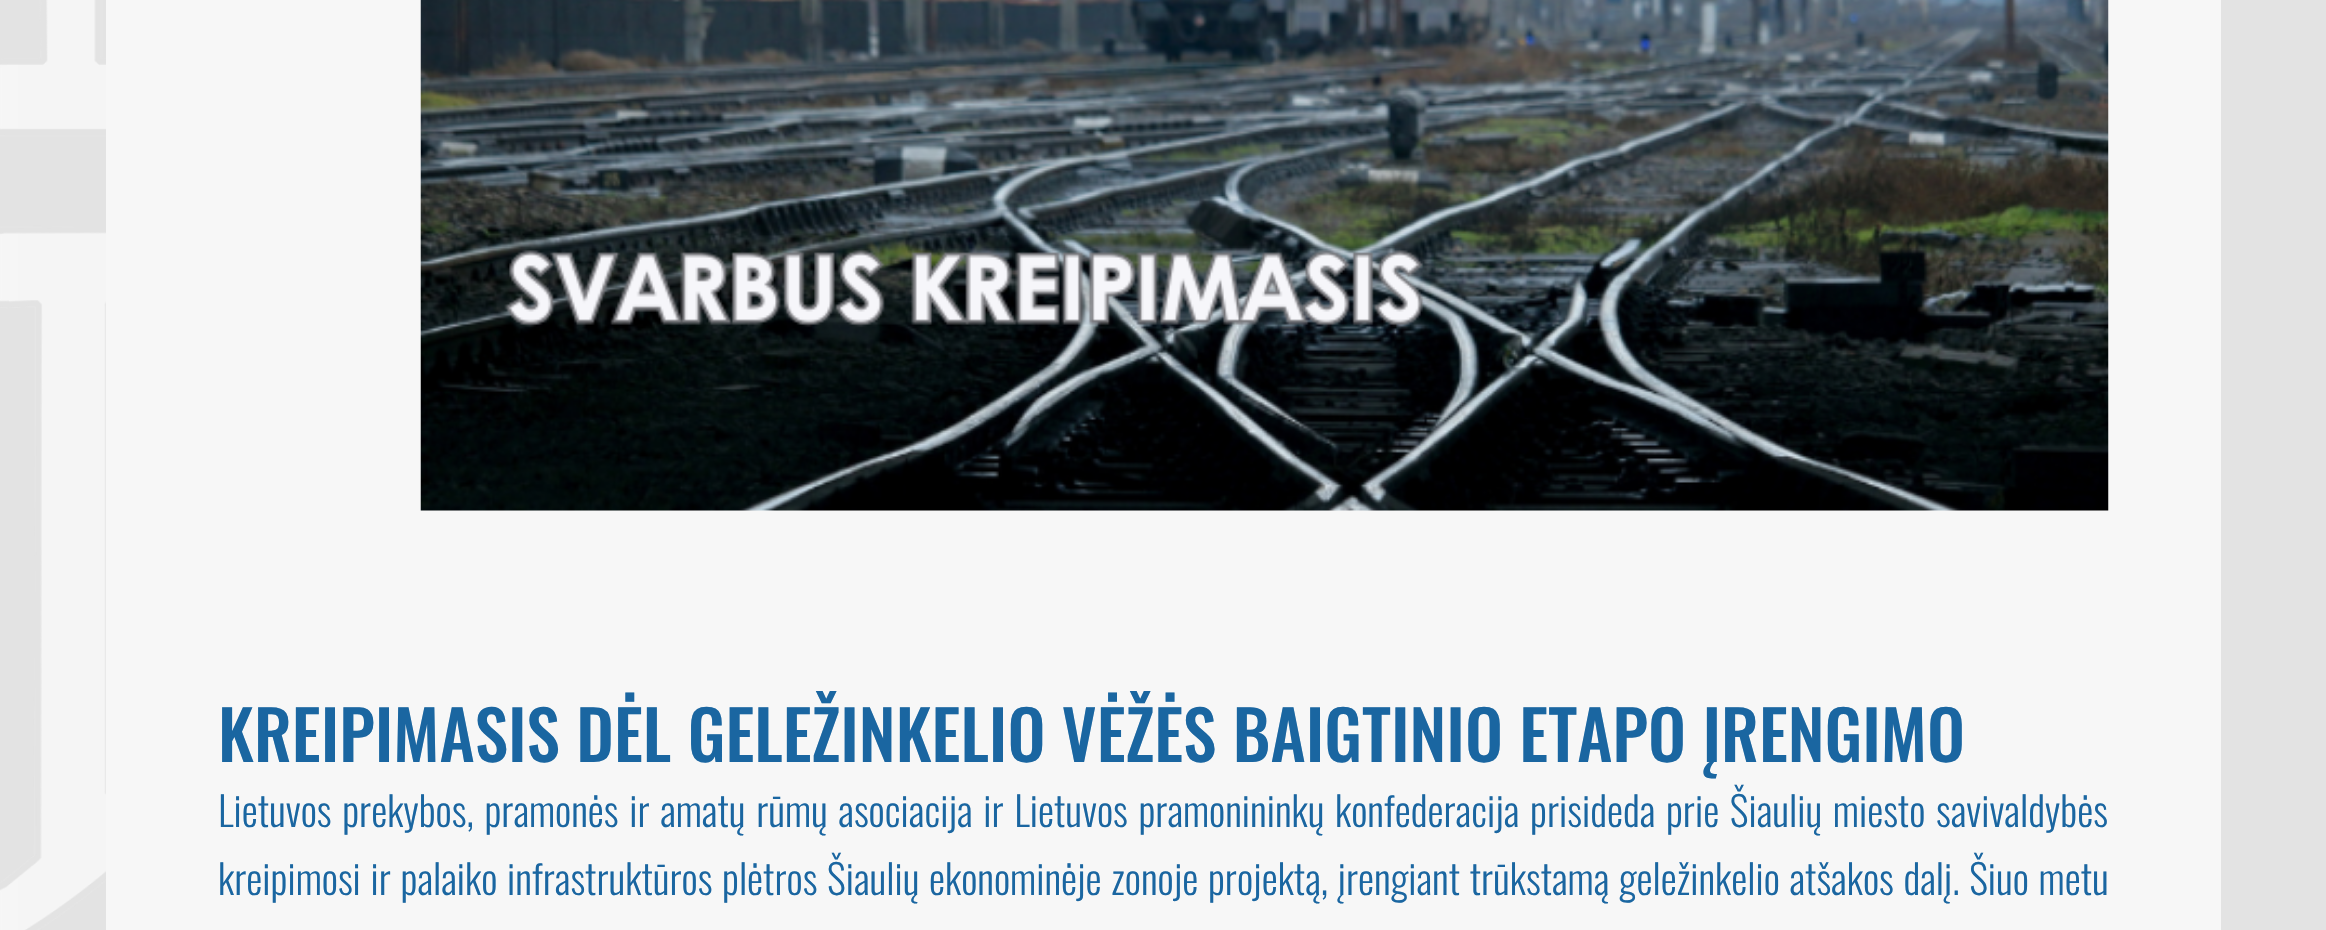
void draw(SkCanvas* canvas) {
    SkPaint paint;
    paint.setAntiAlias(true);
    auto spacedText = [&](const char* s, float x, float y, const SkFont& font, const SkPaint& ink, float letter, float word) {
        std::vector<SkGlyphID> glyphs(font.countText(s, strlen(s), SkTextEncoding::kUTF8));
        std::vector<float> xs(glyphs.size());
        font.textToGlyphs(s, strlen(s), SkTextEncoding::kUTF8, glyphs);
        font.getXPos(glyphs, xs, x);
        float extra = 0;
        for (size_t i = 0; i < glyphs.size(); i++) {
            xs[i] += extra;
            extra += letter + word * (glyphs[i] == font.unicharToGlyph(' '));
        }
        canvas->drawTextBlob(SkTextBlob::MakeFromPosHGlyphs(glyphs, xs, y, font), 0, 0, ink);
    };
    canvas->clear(0xFFE3E3E3);
    canvas->drawImageRect(SkImages::DeferredFromEncodedData(SkData::MakeFromFileName("img1.png")), SkRect::MakeXYWH(0, 0, 106, 930), SkSamplingOptions());
    paint.setColor(0xFFF7F7F7);
    canvas->drawRect(SkRect::MakeXYWH(106, 0, 2115, 930), paint);
    canvas->drawImageRect(SkImages::DeferredFromEncodedData(SkData::MakeFromFileName("img2.png")), SkRect::MakeXYWH(420, 0, 1689, 511), SkSamplingOptions());
    SkFont font1(fontMgr->matchFamilyStyle("Oswald", SkFontStyle(500, SkFontStyle::kNormal_Width, SkFontStyle::kUpright_Slant)), 67.5f);
    font1.setSubpixel(true);
    paint.setColor(0xFF1A66A1);
    canvas->drawString("KREIPIMASIS DĖL GELEŽINKELIO VĖŽĖS BAIGTINIO ETAPO ĮRENGIMO", 218, 762, font1, paint);
    SkFont font2(fontMgr->matchFamilyStyle("Oswald", SkFontStyle(300, SkFontStyle::kNormal_Width, SkFontStyle::kUpright_Slant)), 40.5f);
    font2.setSubpixel(true);
    spacedText("Lietuvos prekybos, pramonės ir amatų rūmų asociacija ir Lietuvos pramonininkų konfederacija prisideda prie Šiaulių miesto savivaldybės", 218, 827, font2, paint, 0, 2.4f);
    spacedText("kreipimosi ir palaiko infrastruktūros plėtros Šiaulių ekonominėje zonoje projektą, įrengiant trūkstamą geležinkelio atšakos dalį. Šiuo metu", 218, 895, font2, paint, 0, 1.4f);
}
